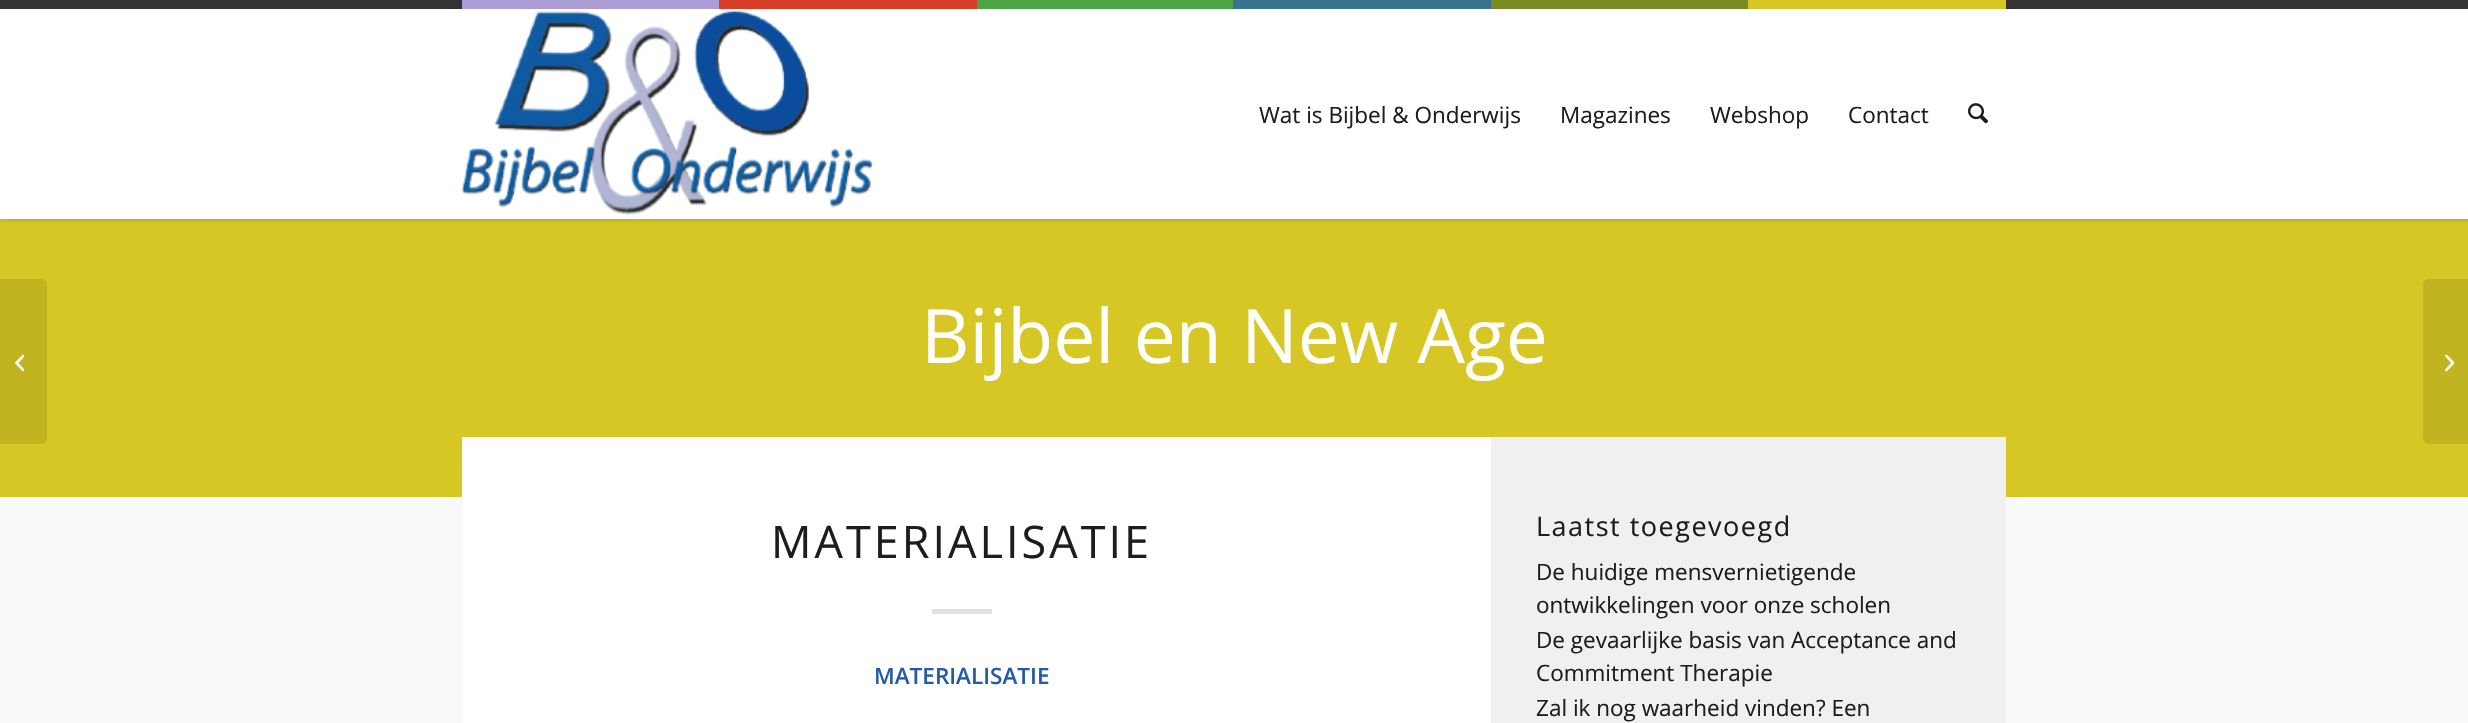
void draw(SkCanvas* canvas) {
    SkPaint paint;
    paint.setAntiAlias(true);
    auto spacedText = [&](const char* s, float x, float y, const SkFont& font, const SkPaint& ink, float letter, float word) {
        std::vector<SkGlyphID> glyphs(font.countText(s, strlen(s), SkTextEncoding::kUTF8));
        std::vector<float> xs(glyphs.size());
        font.textToGlyphs(s, strlen(s), SkTextEncoding::kUTF8, glyphs);
        font.getXPos(glyphs, xs, x);
        float extra = 0;
        for (size_t i = 0; i < glyphs.size(); i++) {
            xs[i] += extra;
            extra += letter + word * (glyphs[i] == font.unicharToGlyph(' '));
        }
        canvas->drawTextBlob(SkTextBlob::MakeFromPosHGlyphs(glyphs, xs, y, font), 0, 0, ink);
    };
    canvas->clear(0xFFD7C724);
    paint.setColor(0x1A000000);
    paint.setMaskFilter(SkMaskFilter::MakeBlur(kNormal_SkBlurStyle, 1.5f));
    canvas->drawRect(SkRect::MakeXYWH(-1, -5, 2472, 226), paint);
    paint.setMaskFilter(nullptr);
    paint.setColor(0xFF333333);
    canvas->drawRect(SkRect::MakeXYWH(0, 0, 2468, 9), paint);
    paint.setColor(0xFFAC9DD4);
    canvas->drawRect(SkRect::MakeXYWH(462, 0, 257, 9), paint);
    paint.setColor(0xFFD73D27);
    canvas->drawRect(SkRect::MakeXYWH(719, 0, 258, 9), paint);
    paint.setColor(0xFF4CA545);
    canvas->drawRect(SkRect::MakeXYWH(977, 0, 256, 9), paint);
    paint.setColor(0xFF39738D);
    canvas->drawRect(SkRect::MakeXYWH(1233, 0, 258, 9), paint);
    paint.setColor(0xFF7A8B23);
    canvas->drawRect(SkRect::MakeXYWH(1491, 0, 257, 9), paint);
    paint.setColor(0xFFD7C724);
    canvas->drawRect(SkRect::MakeXYWH(1748, 0, 258, 9), paint);
    paint.setColor(0xFFFFFFFF);
    canvas->drawRect(SkRect::MakeXYWH(0, 9, 2468, 210), paint);
    canvas->drawImageRect(SkImages::DeferredFromEncodedData(SkData::MakeFromFileName("img1.png")), SkRect::MakeXYWH(462, 10, 411, 205), SkSamplingOptions());
    SkFont font1(fontMgr->matchFamilyStyle("Open Sans", SkFontStyle::Normal()), 22.5f);
    font1.setSubpixel(true);
    paint.setColor(0xFF1D1D1B);
    canvas->drawString("Wat is Bijbel & Onderwijs", 1259, 123, font1, paint);
    canvas->drawString("Magazines", 1560, 123, font1, paint);
    canvas->drawString("Webshop", 1710, 123, font1, paint);
    canvas->drawString("Contact", 1848, 123, font1, paint);
    canvas->drawImageRect(SkImages::DeferredFromEncodedData(SkData::MakeFromFileName("img2.png")), SkRect::MakeXYWH(1968, 103, 20, 21), SkSamplingOptions());
    paint.setColor(0xFFC2B320);
    canvas->drawPath(SkPathBuilder().moveTo(0, 279).lineTo(41, 279).cubicTo(44.5f, 279, 47, 281.5f, 47, 285).lineTo(47, 438).cubicTo(47, 441.5f, 44.5f, 444, 41, 444).lineTo(0, 444).close().detach(), paint);
    canvas->drawImageRect(SkImages::DeferredFromEncodedData(SkData::MakeFromFileName("img3.png")), SkRect::MakeXYWH(15, 354, 9, 18), SkSamplingOptions());
    SkFont font2(fontMgr->matchFamilyStyle("Open Sans", SkFontStyle::Normal()), 75);
    font2.setSubpixel(true);
    paint.setColor(0xFFFFFFFF);
    canvas->drawString("Bijbel en New Age", 921, 363, font2, paint);
    paint.setColor(0xFFF9F9F9);
    canvas->drawRect(SkRect::MakeXYWH(0, 497, 2468, 226), paint);
    paint.setColor(0xFFFFFFFF);
    canvas->drawRect(SkRect::MakeXYWH(462, 437, 1029, 286), paint);
    SkFont font3(fontMgr->matchFamilyStyle("Open Sans", SkFontStyle::Normal()), 45);
    font3.setSubpixel(true);
    paint.setColor(0xFF1D1D1B);
    spacedText("MATERIALISATIE", 771, 558, font3, paint, 3, 0);
    paint.setColor(0xFFE1E1E1);
    canvas->drawRect(SkRect::MakeXYWH(932, 609, 60, 5), paint);
    SkFont font4(fontMgr->matchFamilyStyle("Open Sans", SkFontStyle(600, SkFontStyle::kNormal_Width, SkFontStyle::kUpright_Slant)), 22.5f);
    font4.setSubpixel(true);
    paint.setColor(0xFF245AAB);
    canvas->drawString("MATERIALISATIE", 874, 684, font4, paint);
    paint.setColor(0xFFF0F0F0);
    canvas->drawRect(SkRect::MakeXYWH(1491, 437, 515, 286), paint);
    SkFont font5(fontMgr->matchFamilyStyle("Open Sans", SkFontStyle::Normal()), 27);
    font5.setSubpixel(true);
    paint.setColor(0xFF1D1D1B);
    spacedText("Laatst toegevoegd", 1536, 536, font5, paint, 1.5f, 0);
    canvas->drawString("De huidige mensvernietigende", 1536, 580, font1, paint);
    canvas->drawString("ontwikkelingen voor onze scholen", 1536, 613, font1, paint);
    canvas->drawString("De gevaarlijke basis van Acceptance and", 1536, 648, font1, paint);
    canvas->drawString("Commitment Therapie", 1536, 681, font1, paint);
    canvas->drawString("Zal ik nog waarheid vinden? Een", 1536, 716, font1, paint);
    paint.setColor(0xFFC2B320);
    canvas->drawPath(SkPathBuilder().moveTo(2429, 279).lineTo(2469, 279).lineTo(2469, 444).lineTo(2429, 444).cubicTo(2425.5f, 444, 2423, 441.5f, 2423, 438).lineTo(2423, 285).cubicTo(2423, 281.5f, 2425.5f, 279, 2429, 279).close().detach(), paint);
    canvas->drawImageRect(SkImages::DeferredFromEncodedData(SkData::MakeFromFileName("img4.png")), SkRect::MakeXYWH(2445, 354, 9, 18), SkSamplingOptions());
}
